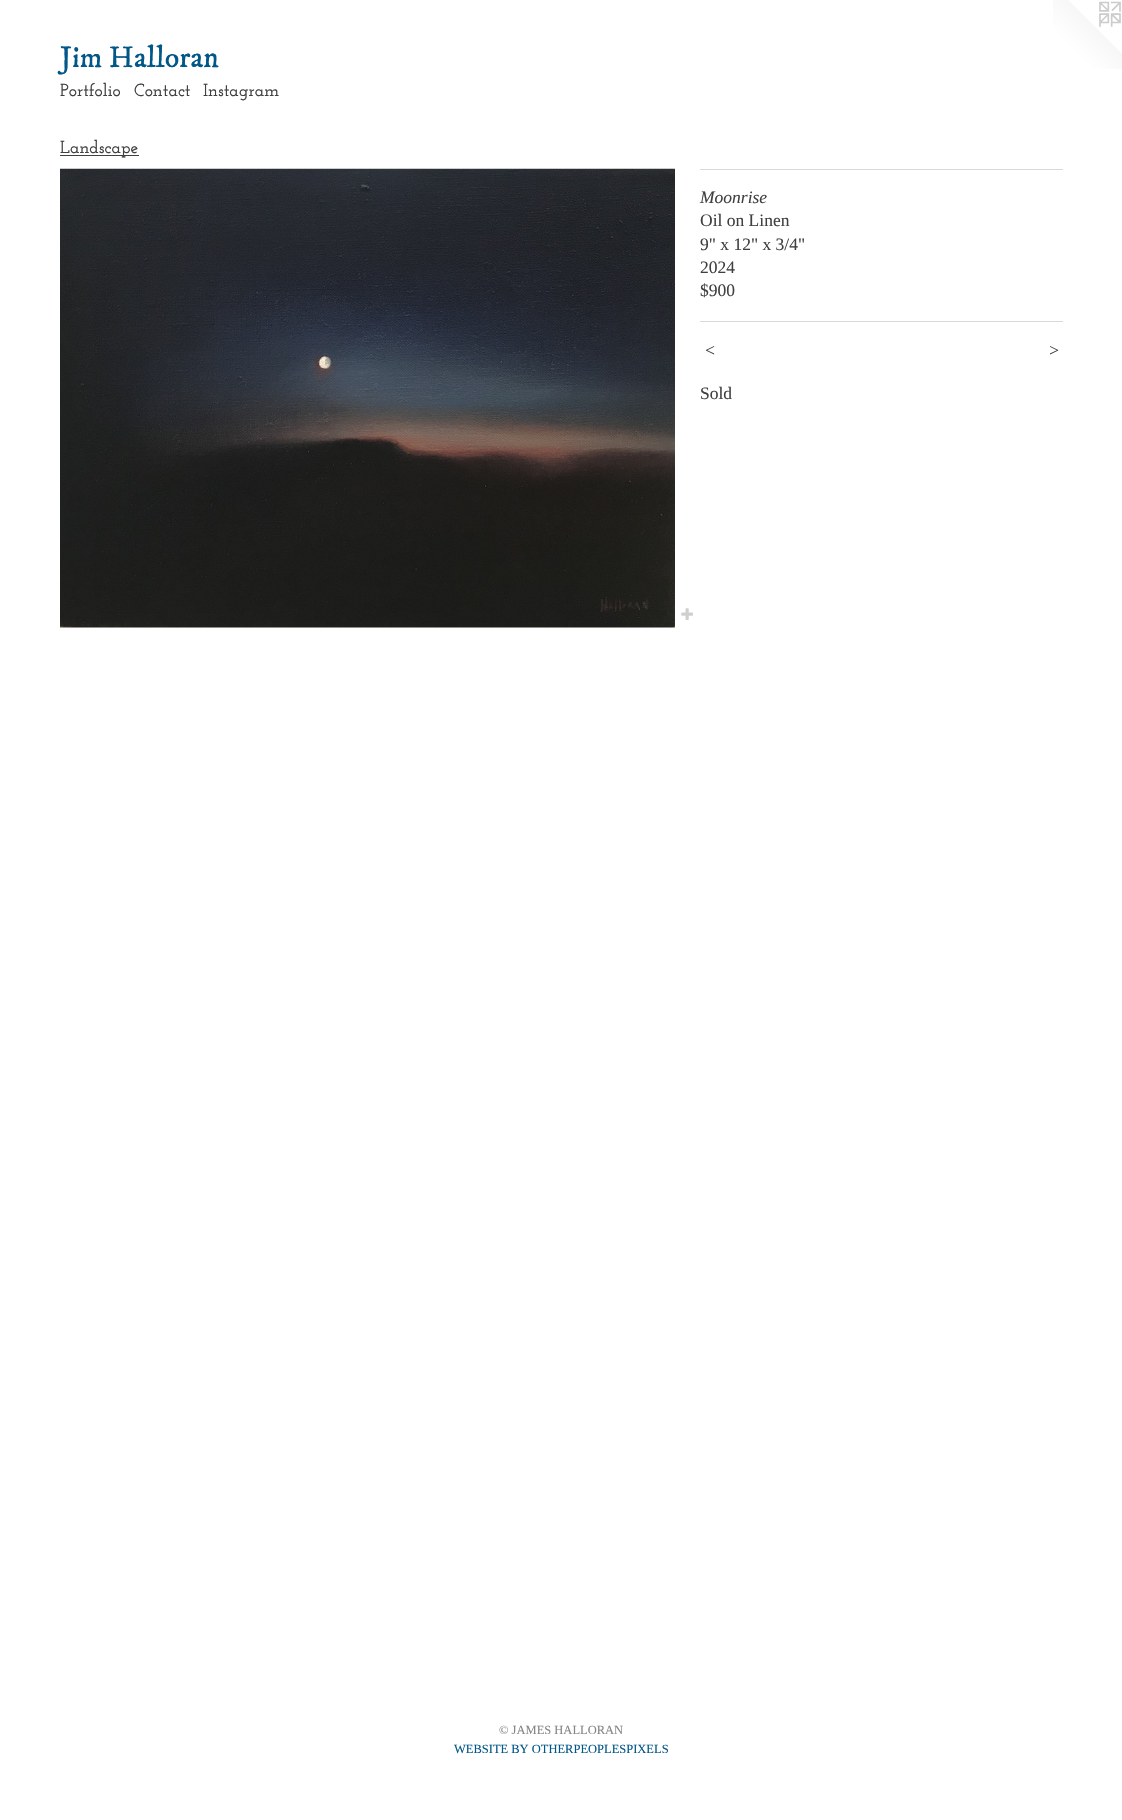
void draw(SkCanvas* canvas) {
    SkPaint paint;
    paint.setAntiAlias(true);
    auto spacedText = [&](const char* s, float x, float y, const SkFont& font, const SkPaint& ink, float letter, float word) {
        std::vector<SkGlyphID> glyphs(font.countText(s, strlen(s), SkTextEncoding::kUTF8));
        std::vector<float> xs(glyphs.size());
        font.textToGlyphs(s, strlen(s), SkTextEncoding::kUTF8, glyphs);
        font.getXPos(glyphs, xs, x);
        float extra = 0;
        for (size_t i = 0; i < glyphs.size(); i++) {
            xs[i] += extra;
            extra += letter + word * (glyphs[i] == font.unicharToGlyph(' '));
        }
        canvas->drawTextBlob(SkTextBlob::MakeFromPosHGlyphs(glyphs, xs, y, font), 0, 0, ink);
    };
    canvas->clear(0xFFFFFFFF);
    SkFont font1(fontMgr->matchFamilyStyle("IM FELL DW Pica", SkFontStyle::Normal()), 30);
    font1.setSubpixel(true);
    paint.setColor(0xFF015788);
    canvas->drawString("Jim Halloran", 60, 67, font1, paint);
    canvas->drawImageRect(SkImages::DeferredFromEncodedData(SkData::MakeFromFileName("img1.png")), SkRect::MakeXYWH(1053, 0, 69, 69), SkSamplingOptions());
    SkFont font2(fontMgr->matchFamilyStyle("Josefin Slab", SkFontStyle(100, SkFontStyle::kNormal_Width, SkFontStyle::kUpright_Slant)), 17.5f);
    font2.setSubpixel(true);
    paint.setColor(0xFF404040);
    canvas->drawString("Portfolio", 60, 96, font2, paint);
    canvas->drawString("Contact", 134, 96, font2, paint);
    canvas->drawString("Instagram", 203, 96, font2, paint);
    canvas->drawRect(SkRect::MakeXYWH(60, 155, 79, 1), paint);
    canvas->drawString("Landscape", 60, 153, font2, paint);
    canvas->drawImageRect(SkImages::DeferredFromEncodedData(SkData::MakeFromFileName("img2.png")), SkRect::MakeXYWH(60, 168, 615, 460), SkSamplingOptions());
    canvas->drawImageRect(SkImages::DeferredFromEncodedData(SkData::MakeFromFileName("img3.png")), SkRect::MakeXYWH(681, 608, 12, 12), SkSamplingOptions());
    paint.setColor(0xFFD9D9D9);
    canvas->drawRect(SkRect::MakeXYWH(700, 169, 363, 1), paint);
    SkFont font3(fontMgr->matchFamilyStyle("Liberation Serif", SkFontStyle::Italic()), 17.5f);
    font3.setSubpixel(true);
    paint.setColor(0xFF404040);
    canvas->drawString("Moonrise", 700, 203, font3, paint);
    SkFont font4(fontMgr->matchFamilyStyle("Liberation Serif", SkFontStyle::Normal()), 17.5f);
    font4.setSubpixel(true);
    canvas->drawString("Oil on Linen", 700, 226, font4, paint);
    canvas->drawString("9\" x 12\" x 3/4\"", 700, 250, font4, paint);
    canvas->drawString("2024", 700, 273, font4, paint);
    canvas->drawString("$900", 700, 296, font4, paint);
    paint.setColor(0xFFD9D9D9);
    canvas->drawRect(SkRect::MakeXYWH(700, 321, 363, 1), paint);
    paint.setColor(0xFF404040);
    spacedText("<", 704, 356, font3, paint, 1, 0);
    spacedText(">", 1048, 356, font3, paint, 1, 0);
    canvas->drawString("Sold", 700, 399, font4, paint);
    SkFont font5(fontMgr->matchFamilyStyle("Liberation Serif", SkFontStyle::Normal()), 12.5f);
    font5.setSubpixel(true);
    paint.setColor(0xFF858585);
    canvas->drawString("© JAMES HALLORAN", 499, 1734, font5, paint);
    paint.setColor(0xFF015788);
    canvas->drawString("WEBSITE BY OTHERPEOPLESPIXELS", 454, 1753, font5, paint);
}
